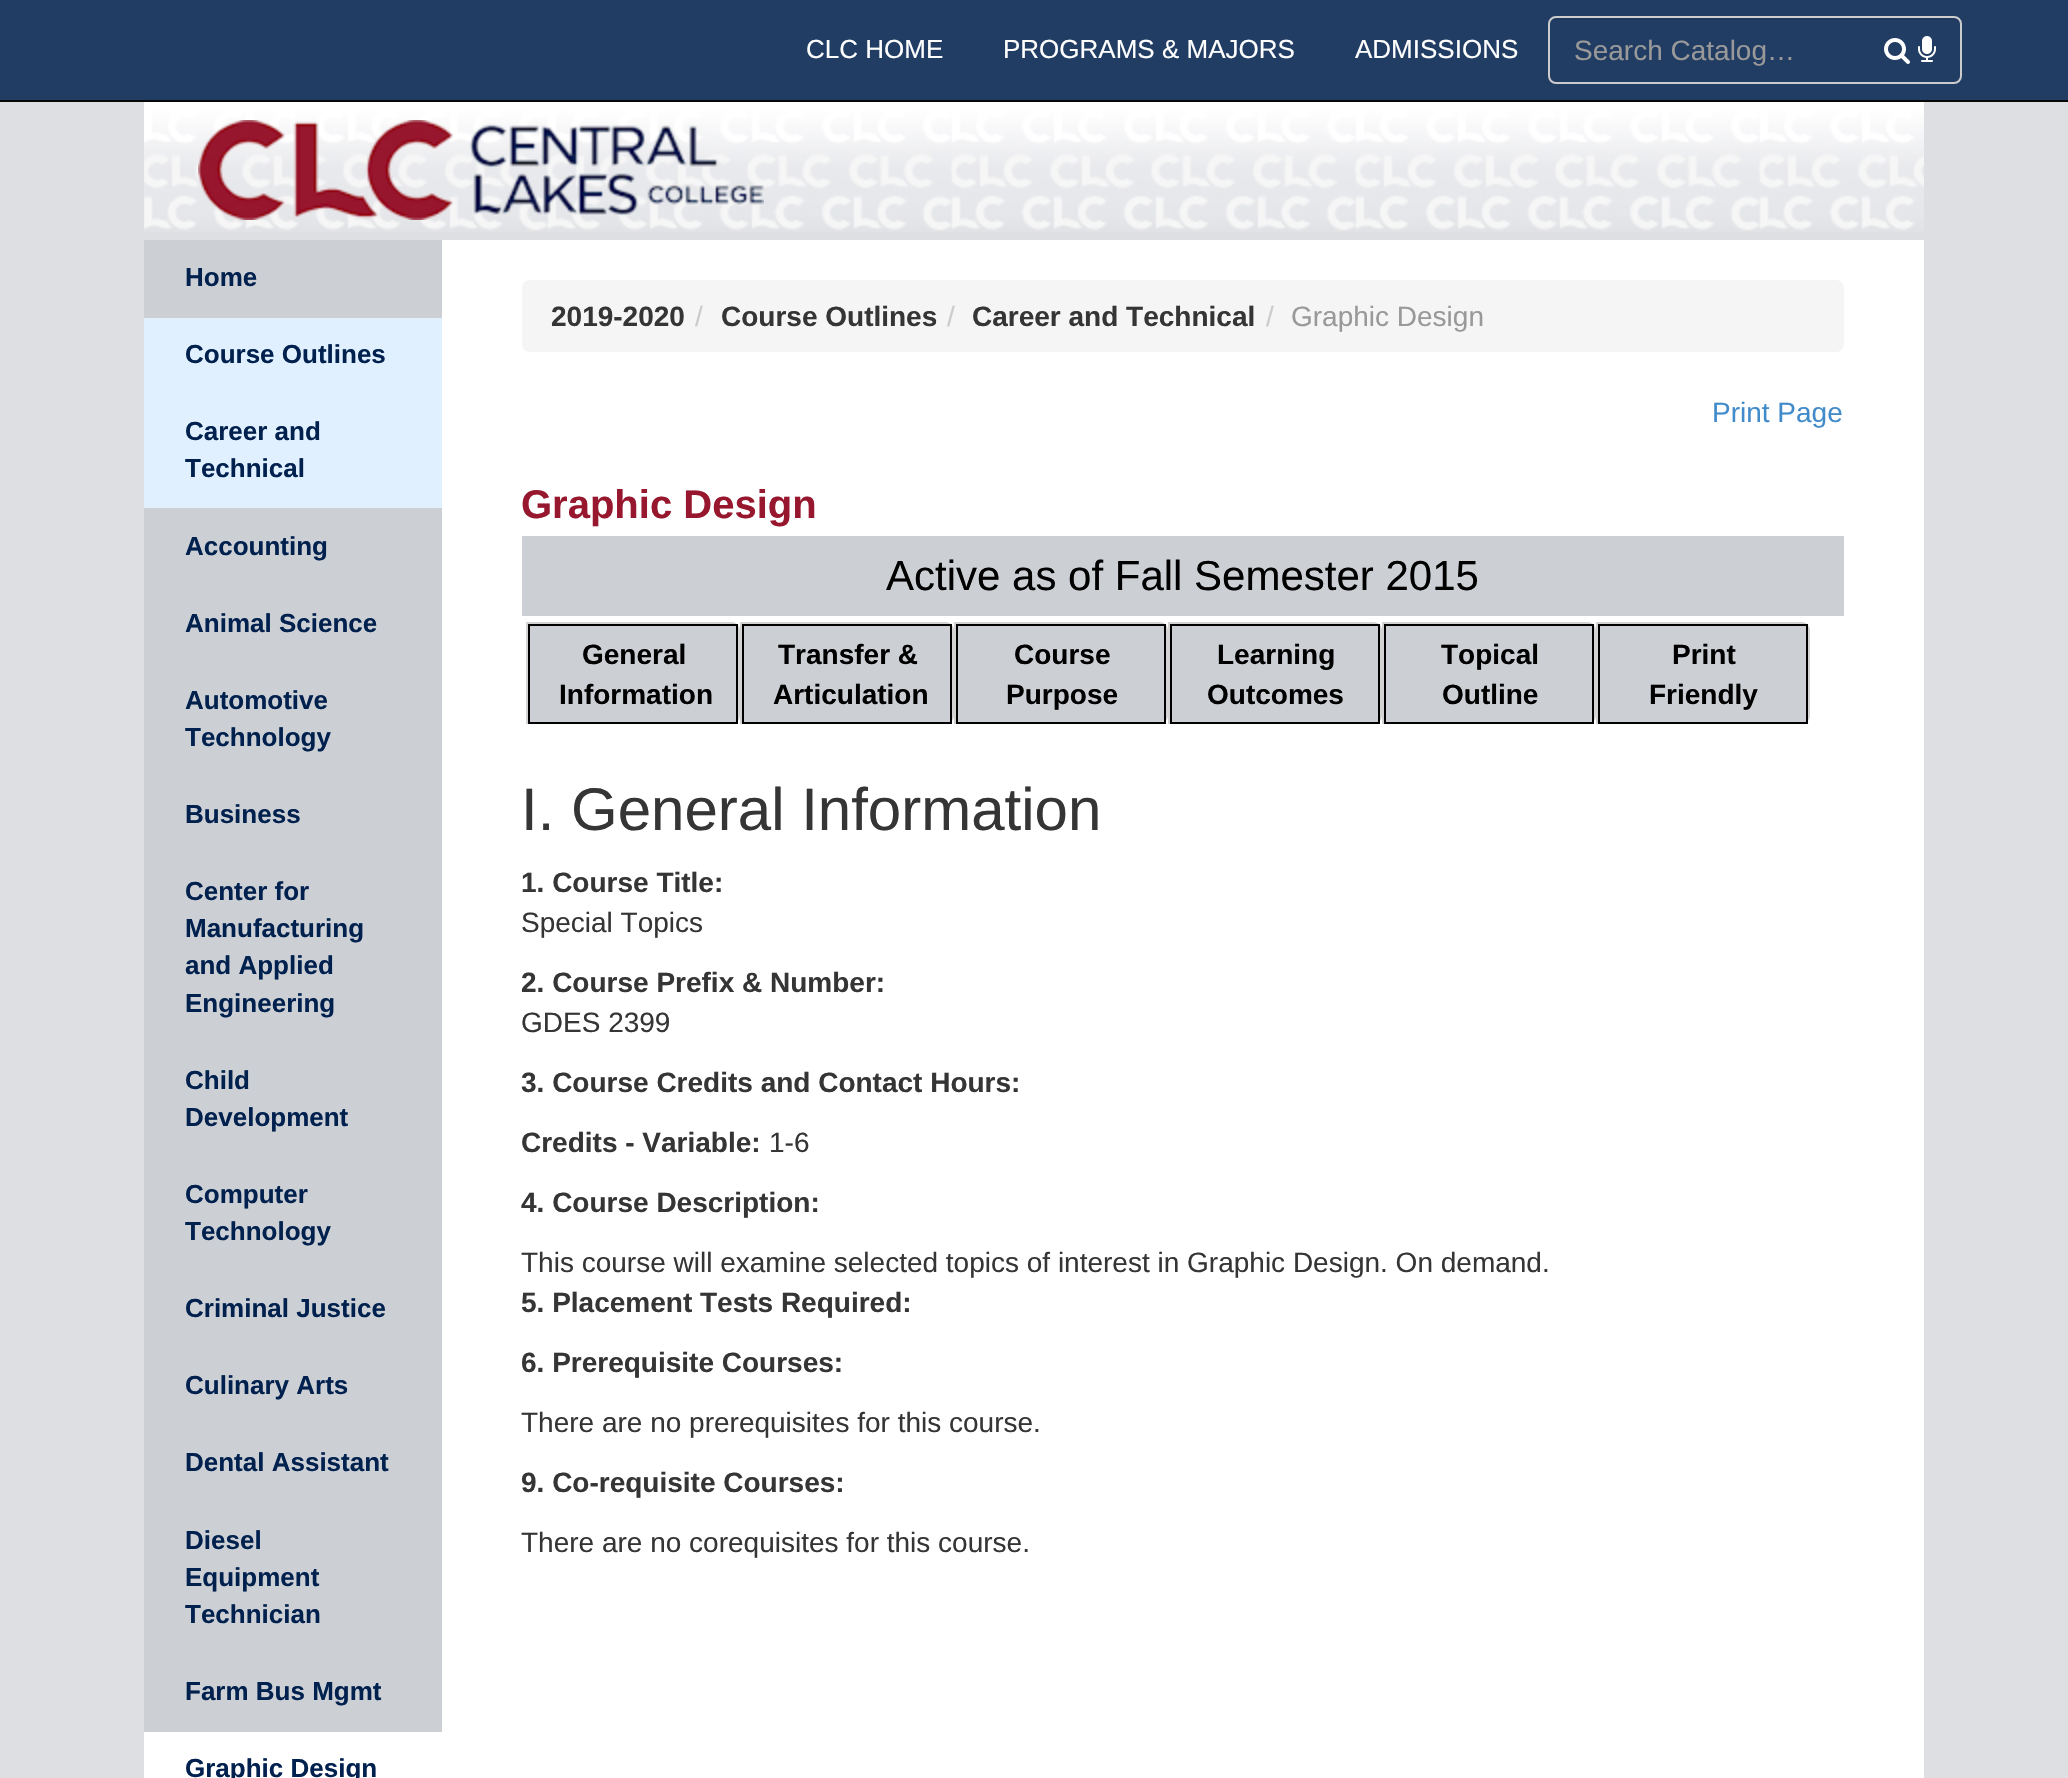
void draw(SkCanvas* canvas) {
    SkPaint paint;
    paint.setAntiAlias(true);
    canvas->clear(0xFFDEDFE2);
    paint.setColor(0xFF213D64);
    canvas->drawRect(SkRect::MakeXYWH(0, 0, 2068, 100), paint);
    paint.setColor(0xFF080808);
    canvas->drawRect(SkRect::MakeXYWH(0, 100, 2068, 2), paint);
    SkFont font1(fontMgr->matchFamilyStyle("Liberation Sans", SkFontStyle::Normal()), 26);
    font1.setSubpixel(true);
    paint.setColor(0xFFFFFFFF);
    canvas->drawString("CLC HOME", 806, 58, font1, paint);
    canvas->drawString("PROGRAMS & MAJORS", 1003, 58, font1, paint);
    canvas->drawString("ADMISSIONS", 1355, 58, font1, paint);
    paint.setColor(0xFF1F385D);
    canvas->drawPath(SkPathBuilder().moveTo(1556, 20).lineTo(1954, 20).cubicTo(1957, 20, 1960, 23, 1960, 26).cubicTo(1960, 22, 1959, 18, 1954, 18).lineTo(1556, 18).cubicTo(1551, 18, 1550, 22, 1550, 26).cubicTo(1550, 23, 1553, 20, 1556, 20).close().detach(), paint);
    paint.setStyle(SkPaint::kStroke_Style);
    paint.setStrokeWidth(2);
    paint.setColor(0xFFCCCCCC);
    canvas->drawRoundRect(SkRect::MakeXYWH(1549, 17, 412, 66), 7, 7, paint);
    SkFont font2(fontMgr->matchFamilyStyle("Liberation Sans", SkFontStyle::Normal()), 28);
    font2.setSubpixel(true);
    paint.setStyle(SkPaint::kFill_Style);
    paint.setColor(0xFF999999);
    canvas->drawString("Search Catalog…", 1574, 60, font2, paint);
    canvas->drawImageRect(SkImages::DeferredFromEncodedData(SkData::MakeFromFileName("img1.png")), SkRect::MakeXYWH(1884, 38, 26, 26), SkSamplingOptions());
    canvas->drawImageRect(SkImages::DeferredFromEncodedData(SkData::MakeFromFileName("img2.png")), SkRect::MakeXYWH(1918, 36, 18, 26), SkSamplingOptions());
    paint.setColor(0xFFCCD0D5);
    canvas->drawRect(SkRect::MakeXYWH(144, 240, 298, 1492), paint);
    canvas->drawImageRect(SkImages::DeferredFromEncodedData(SkData::MakeFromFileName("img3.png")), SkRect::MakeXYWH(144, 102, 1780, 130), SkSamplingOptions());
    canvas->drawImageRect(SkImages::DeferredFromEncodedData(SkData::MakeFromFileName("img4.png")), SkRect::MakeXYWH(198, 120, 566, 100), SkSamplingOptions());
    SkFont font3(fontMgr->matchFamilyStyle("Liberation Sans", SkFontStyle::Bold()), 26);
    font3.setSubpixel(true);
    paint.setColor(0xFF00204E);
    canvas->drawString("Home", 185, 286, font3, paint);
    paint.setColor(0xFFE0F0FF);
    canvas->drawRect(SkRect::MakeXYWH(144, 318, 298, 190), paint);
    paint.setColor(0xFF00204E);
    canvas->drawString("Course Outlines", 185, 363, font3, paint);
    canvas->drawString("Career and", 185, 440, font3, paint);
    canvas->drawString("Technical", 185, 477, font3, paint);
    canvas->drawString("Accounting", 185, 555, font3, paint);
    canvas->drawString("Animal Science", 185, 632, font3, paint);
    canvas->drawString("Automotive", 185, 709, font3, paint);
    canvas->drawString("Technology", 185, 746, font3, paint);
    canvas->drawString("Business", 185, 823, font3, paint);
    canvas->drawString("Center for", 185, 900, font3, paint);
    canvas->drawString("Manufacturing", 185, 937, font3, paint);
    canvas->drawString("and Applied", 185, 974, font3, paint);
    canvas->drawString("Engineering", 185, 1012, font3, paint);
    canvas->drawString("Child", 185, 1089, font3, paint);
    canvas->drawString("Development", 185, 1126, font3, paint);
    canvas->drawString("Computer", 185, 1203, font3, paint);
    canvas->drawString("Technology", 185, 1240, font3, paint);
    canvas->drawString("Criminal Justice", 185, 1317, font3, paint);
    canvas->drawString("Culinary Arts", 185, 1394, font3, paint);
    canvas->drawString("Dental Assistant", 185, 1471, font3, paint);
    canvas->drawString("Diesel", 185, 1549, font3, paint);
    canvas->drawString("Equipment", 185, 1586, font3, paint);
    canvas->drawString("Technician", 185, 1623, font3, paint);
    canvas->drawString("Farm Bus Mgmt", 185, 1700, font3, paint);
    paint.setColor(0xFFFFFFFF);
    canvas->drawRect(SkRect::MakeXYWH(144, 1732, 298, 46), paint);
    paint.setColor(0xFF00204E);
    canvas->drawString("Graphic Design", 185, 1777, font3, paint);
    paint.setColor(0xFFFFFFFF);
    canvas->drawRect(SkRect::MakeXYWH(442, 240, 1482, 1538), paint);
    paint.setColor(0xFFF5F5F5);
    canvas->drawRoundRect(SkRect::MakeXYWH(522, 280, 1322, 72), 8, 8, paint);
    SkFont font4(fontMgr->matchFamilyStyle("Liberation Sans", SkFontStyle::Bold()), 28);
    font4.setSubpixel(true);
    paint.setColor(0xFF353535);
    canvas->drawString("2019-2020", 551, 326, font4, paint);
    paint.setColor(0xFFCCCCCC);
    canvas->drawString("/", 695, 326, font2, paint);
    paint.setColor(0xFF353535);
    canvas->drawString("Course Outlines", 721, 326, font4, paint);
    paint.setColor(0xFFCCCCCC);
    canvas->drawString("/", 947, 326, font2, paint);
    paint.setColor(0xFF353535);
    canvas->drawString("Career and Technical", 972, 326, font4, paint);
    paint.setColor(0xFFCCCCCC);
    canvas->drawString("/", 1266, 326, font2, paint);
    paint.setColor(0xFF999999);
    canvas->drawString("Graphic Design", 1291, 326, font2, paint);
    paint.setColor(0xFF428BCA);
    canvas->drawString("Print Page", 1712, 422, font2, paint);
    SkFont font5(fontMgr->matchFamilyStyle("Liberation Sans", SkFontStyle::Bold()), 40);
    font5.setSubpixel(true);
    paint.setColor(0xFF96172E);
    canvas->drawString("Graphic Design", 521, 518, font5, paint);
    paint.setColor(0xFFCCD0D5);
    canvas->drawRect(SkRect::MakeXYWH(522, 536, 1322, 80), paint);
    SkFont font6(fontMgr->matchFamilyStyle("Liberation Sans", SkFontStyle::Normal()), 42);
    font6.setSubpixel(true);
    paint.setColor(0xFF000000);
    canvas->drawString("Active as of Fall Semester 2015", 886, 590, font6, paint);
    paint.setColor(0xFFD3D3D3);
    canvas->drawPath(SkPathBuilder(SkPathFillType::kEvenOdd).moveTo(526, 622).lineTo(732, 622).cubicTo(736, 622, 740, 626, 740, 630).lineTo(740, 716).cubicTo(740, 720, 736, 724, 732, 724).lineTo(526, 724).close().moveTo(528, 624).lineTo(732, 624).cubicTo(735, 624, 738, 627, 738, 630).lineTo(738, 716).cubicTo(738, 720, 735, 724, 732, 724).lineTo(528, 724).close().detach(), paint);
    paint.setColor(0xFFCCD0D5);
    canvas->drawRect(SkRect::MakeXYWH(529, 625, 208, 98), paint);
    paint.setStyle(SkPaint::kStroke_Style);
    paint.setColor(0xFF000000);
    canvas->drawRect(SkRect::MakeXYWH(529, 625, 208, 98), paint);
    paint.setStyle(SkPaint::kFill_Style);
    canvas->drawString("General", 582, 664, font4, paint);
    canvas->drawString("Information", 559, 704, font4, paint);
    paint.setColor(0xFFD3D3D3);
    canvas->drawPath(SkPathBuilder(SkPathFillType::kEvenOdd).moveTo(740, 622).lineTo(946, 622).cubicTo(950, 622, 954, 626, 954, 630).lineTo(954, 716).cubicTo(954, 720, 950, 724, 946, 724).lineTo(740, 724).close().moveTo(742, 624).lineTo(946, 624).cubicTo(949, 624, 952, 627, 952, 630).lineTo(952, 716).cubicTo(952, 720, 949, 724, 946, 724).lineTo(742, 724).close().detach(), paint);
    paint.setColor(0xFFCCD0D5);
    canvas->drawRect(SkRect::MakeXYWH(743, 625, 208, 98), paint);
    paint.setStyle(SkPaint::kStroke_Style);
    paint.setColor(0xFF000000);
    canvas->drawRect(SkRect::MakeXYWH(743, 625, 208, 98), paint);
    paint.setStyle(SkPaint::kFill_Style);
    canvas->drawString("Transfer &", 778, 664, font4, paint);
    canvas->drawString("Articulation", 773, 704, font4, paint);
    paint.setColor(0xFFD3D3D3);
    canvas->drawPath(SkPathBuilder(SkPathFillType::kEvenOdd).moveTo(954, 622).lineTo(1160, 622).cubicTo(1164, 622, 1168, 626, 1168, 630).lineTo(1168, 716).cubicTo(1168, 720, 1164, 724, 1160, 724).lineTo(954, 724).close().moveTo(956, 624).lineTo(1160, 624).cubicTo(1163, 624, 1166, 627, 1166, 630).lineTo(1166, 716).cubicTo(1166, 720, 1163, 724, 1160, 724).lineTo(956, 724).close().detach(), paint);
    paint.setColor(0xFFCCD0D5);
    canvas->drawRect(SkRect::MakeXYWH(957, 625, 208, 98), paint);
    paint.setStyle(SkPaint::kStroke_Style);
    paint.setColor(0xFF000000);
    canvas->drawRect(SkRect::MakeXYWH(957, 625, 208, 98), paint);
    paint.setStyle(SkPaint::kFill_Style);
    canvas->drawString("Course", 1014, 664, font4, paint);
    canvas->drawString("Purpose", 1006, 704, font4, paint);
    paint.setColor(0xFFD3D3D3);
    canvas->drawPath(SkPathBuilder(SkPathFillType::kEvenOdd).moveTo(1168, 622).lineTo(1374, 622).cubicTo(1378, 622, 1382, 626, 1382, 630).lineTo(1382, 716).cubicTo(1382, 720, 1378, 724, 1374, 724).lineTo(1168, 724).close().moveTo(1170, 624).lineTo(1374, 624).cubicTo(1377, 624, 1380, 627, 1380, 630).lineTo(1380, 716).cubicTo(1380, 720, 1377, 724, 1374, 724).lineTo(1170, 724).close().detach(), paint);
    paint.setColor(0xFFCCD0D5);
    canvas->drawRect(SkRect::MakeXYWH(1171, 625, 208, 98), paint);
    paint.setStyle(SkPaint::kStroke_Style);
    paint.setColor(0xFF000000);
    canvas->drawRect(SkRect::MakeXYWH(1171, 625, 208, 98), paint);
    paint.setStyle(SkPaint::kFill_Style);
    canvas->drawString("Learning", 1217, 664, font4, paint);
    canvas->drawString("Outcomes", 1207, 704, font4, paint);
    paint.setColor(0xFFD3D3D3);
    canvas->drawPath(SkPathBuilder(SkPathFillType::kEvenOdd).moveTo(1382, 622).lineTo(1588, 622).cubicTo(1592, 622, 1596, 626, 1596, 630).lineTo(1596, 716).cubicTo(1596, 720, 1592, 724, 1588, 724).lineTo(1382, 724).close().moveTo(1384, 624).lineTo(1588, 624).cubicTo(1591, 624, 1594, 627, 1594, 630).lineTo(1594, 716).cubicTo(1594, 720, 1591, 724, 1588, 724).lineTo(1384, 724).close().detach(), paint);
    paint.setColor(0xFFCCD0D5);
    canvas->drawRect(SkRect::MakeXYWH(1385, 625, 208, 98), paint);
    paint.setStyle(SkPaint::kStroke_Style);
    paint.setColor(0xFF000000);
    canvas->drawRect(SkRect::MakeXYWH(1385, 625, 208, 98), paint);
    paint.setStyle(SkPaint::kFill_Style);
    canvas->drawString("Topical", 1441, 664, font4, paint);
    canvas->drawString("Outline", 1442, 704, font4, paint);
    paint.setColor(0xFFD3D3D3);
    canvas->drawPath(SkPathBuilder(SkPathFillType::kEvenOdd).moveTo(1596, 622).lineTo(1802, 622).cubicTo(1806, 622, 1810, 626, 1810, 630).lineTo(1810, 716).cubicTo(1810, 720, 1806, 724, 1802, 724).lineTo(1596, 724).close().moveTo(1598, 624).lineTo(1802, 624).cubicTo(1805, 624, 1808, 627, 1808, 630).lineTo(1808, 716).cubicTo(1808, 720, 1805, 724, 1802, 724).lineTo(1598, 724).close().detach(), paint);
    paint.setColor(0xFFCCD0D5);
    canvas->drawRect(SkRect::MakeXYWH(1599, 625, 208, 98), paint);
    paint.setStyle(SkPaint::kStroke_Style);
    paint.setColor(0xFF000000);
    canvas->drawRect(SkRect::MakeXYWH(1599, 625, 208, 98), paint);
    paint.setStyle(SkPaint::kFill_Style);
    canvas->drawString("Print", 1672, 664, font4, paint);
    canvas->drawString("Friendly", 1649, 704, font4, paint);
    SkFont font7(fontMgr->matchFamilyStyle("Liberation Sans", SkFontStyle::Normal()), 60);
    font7.setSubpixel(true);
    paint.setColor(0xFF353535);
    canvas->drawString("I. General Information", 521, 830, font7, paint);
    canvas->drawString("1. Course Title:", 521, 892, font4, paint);
    canvas->drawString("Special Topics", 521, 932, font2, paint);
    canvas->drawString("2. Course Prefix & Number:", 521, 992, font4, paint);
    canvas->drawString("GDES 2399", 521, 1032, font2, paint);
    canvas->drawString("3. Course Credits and Contact Hours:", 521, 1092, font4, paint);
    canvas->drawString("Credits - Variable:", 521, 1152, font4, paint);
    canvas->drawString("1-6", 769, 1152, font2, paint);
    canvas->drawString("4. Course Description:", 521, 1212, font4, paint);
    canvas->drawString("This course will examine selected topics of interest in Graphic Design. On demand.", 521, 1272, font2, paint);
    canvas->drawString("5. Placement Tests Required:", 521, 1312, font4, paint);
    canvas->drawString("6. Prerequisite Courses:", 521, 1372, font4, paint);
    canvas->drawString("There are no prerequisites for this course.", 521, 1432, font2, paint);
    canvas->drawString("9. Co-requisite Courses:", 521, 1492, font4, paint);
    canvas->drawString("There are no corequisites for this course.", 521, 1552, font2, paint);
}
